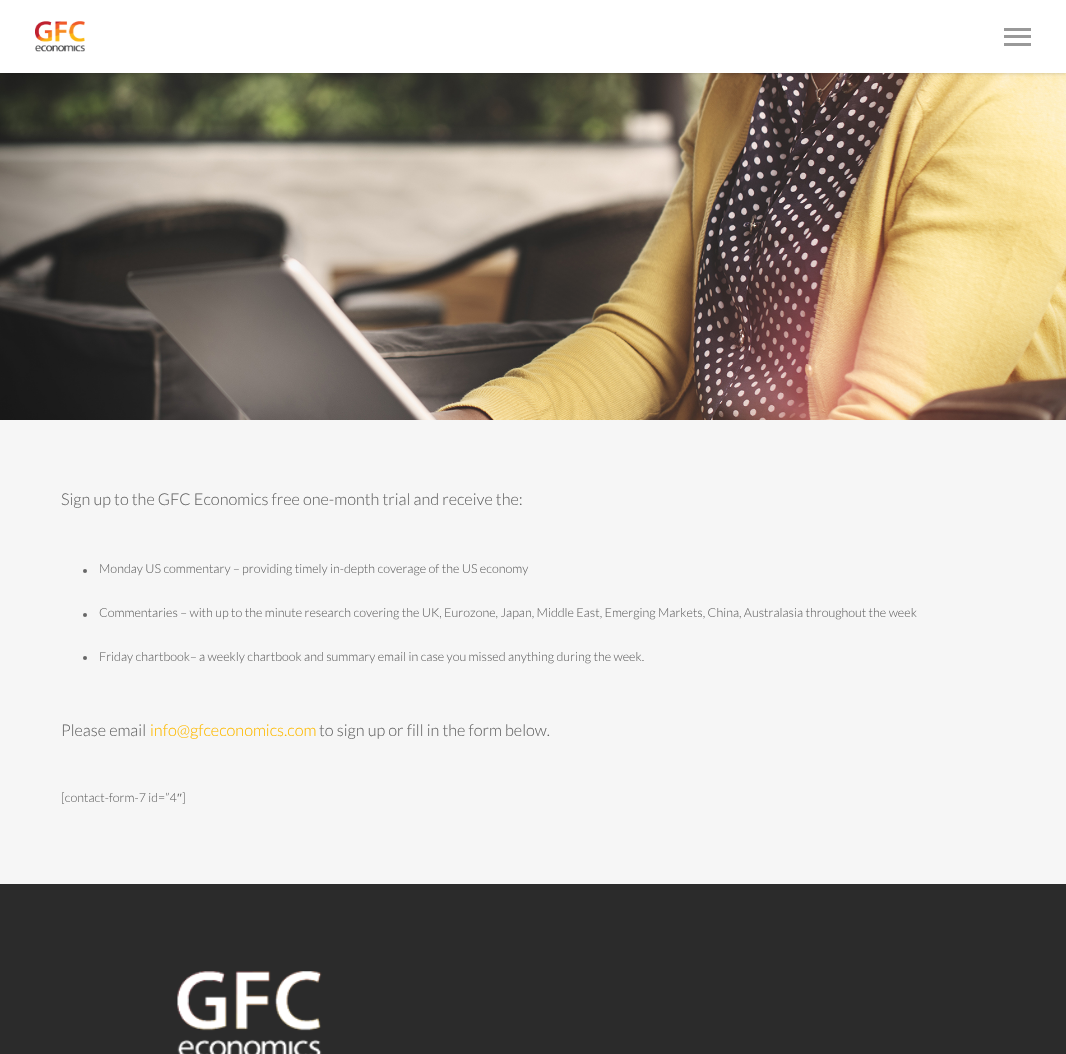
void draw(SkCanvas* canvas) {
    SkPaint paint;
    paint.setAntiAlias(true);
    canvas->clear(0xFF2B2B2B);
    canvas->drawImageRect(SkImages::DeferredFromEncodedData(SkData::MakeFromFileName("img2.png")), SkRect::MakeXYWH(0, 73, 1066, 347), SkSamplingOptions());
    paint.setColor(0x38000000);
    paint.setMaskFilter(SkMaskFilter::MakeBlur(kNormal_SkBlurStyle, 2));
    canvas->drawRect(SkRect::MakeXYWH(0, 0, 1066, 73), paint);
    paint.setMaskFilter(nullptr);
    paint.setColor(0xFFFFFFFF);
    canvas->drawRect(SkRect::MakeXYWH(0, 0, 1066, 73), paint);
    canvas->drawImageRect(SkImages::DeferredFromEncodedData(SkData::MakeFromFileName("img1.png")), SkRect::MakeXYWH(35, 21, 50, 31), SkSamplingOptions());
    paint.setColor(0xFF999999);
    canvas->drawRect(SkRect::MakeXYWH(1004, 28, 27, 3), paint);
    canvas->drawRect(SkRect::MakeXYWH(1004, 43, 27, 3), paint);
    canvas->drawRect(SkRect::MakeXYWH(1004, 35, 27, 3), paint);
    paint.setColor(0xFFF6F6F6);
    canvas->drawRect(SkRect::MakeXYWH(0, 420, 1066, 464), paint);
    SkFont font1(fontMgr->matchFamilyStyle("Lato", SkFontStyle(300, SkFontStyle::kNormal_Width, SkFontStyle::kUpright_Slant)), 16.25f);
    font1.setSubpixel(true);
    paint.setColor(0xFF676767);
    canvas->drawString("Sign up to the GFC Economics free one-month trial and receive the:", 61, 505, font1, paint);
    canvas->drawCircle(85, 571, 2, paint);
    SkFont font2(fontMgr->matchFamilyStyle("Lato", SkFontStyle(300, SkFontStyle::kNormal_Width, SkFontStyle::kUpright_Slant)), 12.5f);
    font2.setSubpixel(true);
    canvas->drawString("Monday US commentary – providing timely in-depth coverage of the US economy", 99, 573, font2, paint);
    canvas->drawCircle(85, 615, 2, paint);
    canvas->drawString("Commentaries – with up to the minute research covering the UK, Eurozone, Japan, Middle East, Emerging Markets, China, Australasia throughout the week", 99, 617, font2, paint);
    canvas->drawCircle(85, 658, 2, paint);
    canvas->drawString("Friday chartbook– a weekly chartbook and summary email in case you missed anything during the week.", 99, 661, font2, paint);
    canvas->drawString("Please email", 61, 736, font1, paint);
    paint.setColor(0xFFFEBA01);
    canvas->drawString("info@gfceconomics.com", 150, 736, font1, paint);
    paint.setColor(0xFF676767);
    canvas->drawString("to sign up or fill in the form below.", 319, 736, font1, paint);
    canvas->drawString("[contact-form-7 id=”4", 61, 802, font2, paint);
    SkFont font3(fontMgr->matchFamilyStyle("Liberation Serif", SkFontStyle::Normal()), 12.5f);
    font3.setSubpixel(true);
    canvas->drawString("″", 177, 802, font3, paint);
    canvas->drawString("]", 182, 802, font2, paint);
    canvas->drawImageRect(SkImages::DeferredFromEncodedData(SkData::MakeFromFileName("img3.png")), SkRect::MakeXYWH(177, 971, 145, 83), SkSamplingOptions());
}
